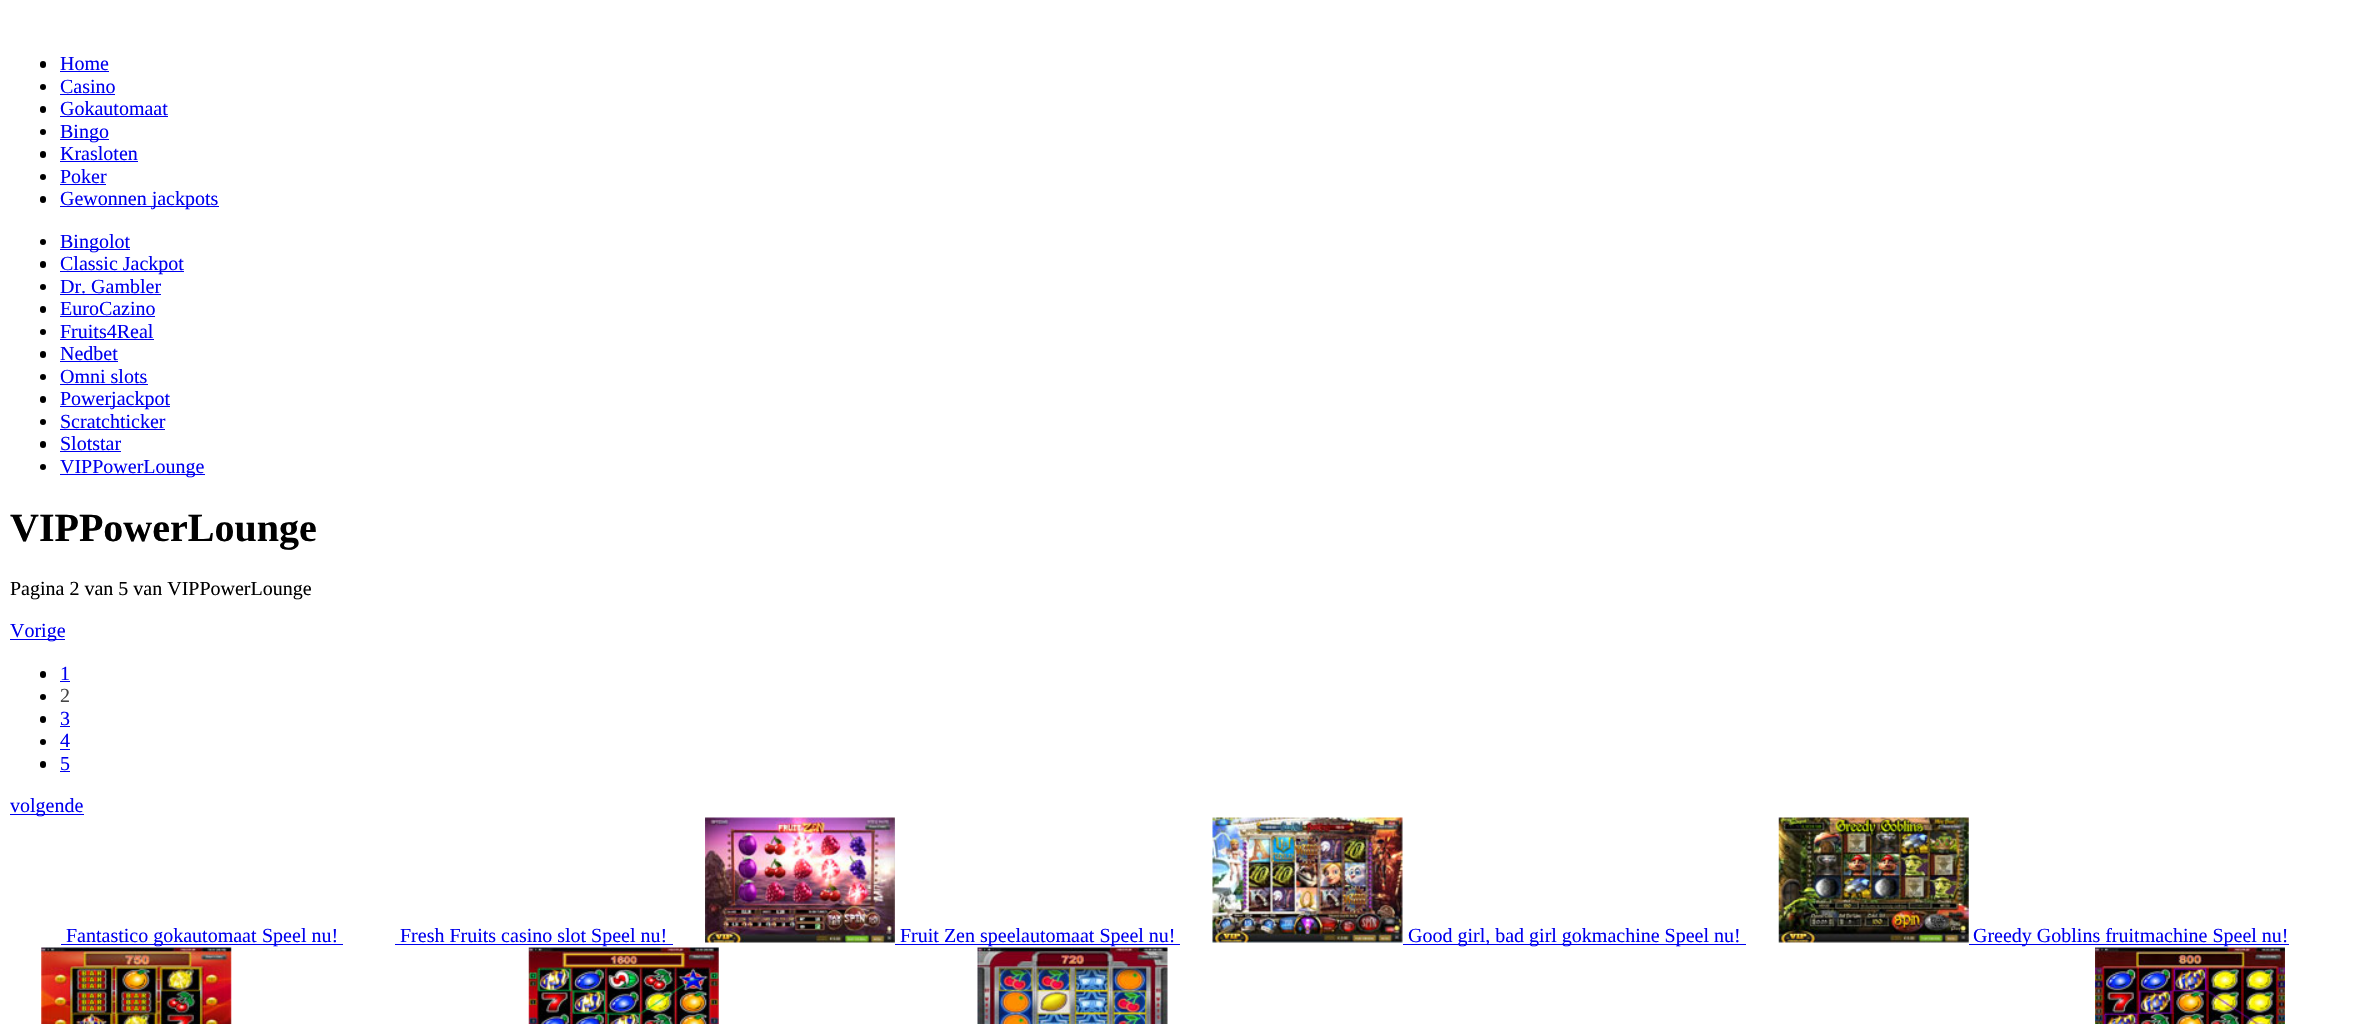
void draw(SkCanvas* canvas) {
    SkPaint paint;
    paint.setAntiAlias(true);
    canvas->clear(0xFFFFFFFF);
    paint.setColor(0xFF000000);
    canvas->drawRoundRect(SkRect::MakeXYWH(40, 61, 6, 7), 3, 3, paint);
    SkFont font1(fontMgr->matchFamilyStyle("Liberation Serif", SkFontStyle::Normal()), 20);
    font1.setSubpixel(true);
    paint.setColor(0xFF0000EE);
    canvas->drawString("Home", 60, 70, font1, paint);
    canvas->drawRect(SkRect::MakeXYWH(60, 71, 49, 1), paint);
    paint.setColor(0xFF000000);
    canvas->drawCircle(43, 87, 3, paint);
    paint.setColor(0xFF0000EE);
    canvas->drawString("Casino", 60, 93, font1, paint);
    canvas->drawRect(SkRect::MakeXYWH(60, 94, 55, 1), paint);
    paint.setColor(0xFF000000);
    canvas->drawRoundRect(SkRect::MakeXYWH(40, 106, 6, 7), 3, 3, paint);
    paint.setColor(0xFF0000EE);
    canvas->drawString("Gokautomaat", 60, 115, font1, paint);
    canvas->drawRect(SkRect::MakeXYWH(60, 116, 108, 1), paint);
    paint.setColor(0xFF000000);
    canvas->drawCircle(43, 132, 3, paint);
    paint.setColor(0xFF0000EE);
    canvas->drawRect(SkRect::MakeXYWH(60, 139, 49, 1), paint);
    canvas->drawString("Bingo", 60, 138, font1, paint);
    paint.setColor(0xFF000000);
    canvas->drawRoundRect(SkRect::MakeXYWH(40, 151, 6, 7), 3, 3, paint);
    paint.setColor(0xFF0000EE);
    canvas->drawString("Krasloten", 60, 160, font1, paint);
    canvas->drawRect(SkRect::MakeXYWH(60, 161, 78, 1), paint);
    paint.setColor(0xFF000000);
    canvas->drawCircle(43, 177, 3, paint);
    paint.setColor(0xFF0000EE);
    canvas->drawString("Poker", 60, 183, font1, paint);
    canvas->drawRect(SkRect::MakeXYWH(60, 184, 46, 1), paint);
    paint.setColor(0xFF000000);
    canvas->drawRoundRect(SkRect::MakeXYWH(40, 196, 6, 7), 3, 3, paint);
    paint.setColor(0xFF0000EE);
    canvas->drawRect(SkRect::MakeXYWH(60, 206, 159, 1), paint);
    canvas->drawString("Gewonnen jackpots", 60, 205, font1, paint);
    paint.setColor(0xFF000000);
    canvas->drawCircle(43, 242, 3, paint);
    paint.setColor(0xFF0000EE);
    canvas->drawRect(SkRect::MakeXYWH(60, 249, 70, 1), paint);
    canvas->drawString("Bingolot", 60, 248, font1, paint);
    paint.setColor(0xFF000000);
    canvas->drawRoundRect(SkRect::MakeXYWH(40, 261, 6, 7), 3, 3, paint);
    paint.setColor(0xFF0000EE);
    canvas->drawRect(SkRect::MakeXYWH(60, 271, 124, 1), paint);
    canvas->drawString("Classic Jackpot", 60, 270, font1, paint);
    paint.setColor(0xFF000000);
    canvas->drawCircle(43, 287, 3, paint);
    paint.setColor(0xFF0000EE);
    canvas->drawString("Dr. Gambler", 60, 293, font1, paint);
    canvas->drawRect(SkRect::MakeXYWH(60, 294, 101, 1), paint);
    paint.setColor(0xFF000000);
    canvas->drawRoundRect(SkRect::MakeXYWH(40, 306, 6, 7), 3, 3, paint);
    paint.setColor(0xFF0000EE);
    canvas->drawString("EuroCazino", 60, 315, font1, paint);
    canvas->drawRect(SkRect::MakeXYWH(60, 316, 95, 1), paint);
    paint.setColor(0xFF000000);
    canvas->drawCircle(43, 332, 3, paint);
    paint.setColor(0xFF0000EE);
    canvas->drawString("Fruits4Real", 60, 338, font1, paint);
    canvas->drawRect(SkRect::MakeXYWH(60, 339, 94, 1), paint);
    paint.setColor(0xFF000000);
    canvas->drawRoundRect(SkRect::MakeXYWH(40, 351, 6, 7), 3, 3, paint);
    paint.setColor(0xFF0000EE);
    canvas->drawString("Nedbet", 60, 360, font1, paint);
    canvas->drawRect(SkRect::MakeXYWH(60, 361, 58, 1), paint);
    paint.setColor(0xFF000000);
    canvas->drawCircle(43, 377, 3, paint);
    paint.setColor(0xFF0000EE);
    canvas->drawString("Omni slots", 60, 383, font1, paint);
    canvas->drawRect(SkRect::MakeXYWH(60, 384, 88, 1), paint);
    paint.setColor(0xFF000000);
    canvas->drawRoundRect(SkRect::MakeXYWH(40, 396, 6, 7), 3, 3, paint);
    paint.setColor(0xFF0000EE);
    canvas->drawRect(SkRect::MakeXYWH(60, 406, 110, 1), paint);
    canvas->drawString("Powerjackpot", 60, 405, font1, paint);
    paint.setColor(0xFF000000);
    canvas->drawCircle(43, 422, 3, paint);
    paint.setColor(0xFF0000EE);
    canvas->drawString("Scratchticker", 60, 428, font1, paint);
    canvas->drawRect(SkRect::MakeXYWH(60, 429, 105, 1), paint);
    paint.setColor(0xFF000000);
    canvas->drawRoundRect(SkRect::MakeXYWH(40, 441, 6, 7), 3, 3, paint);
    paint.setColor(0xFF0000EE);
    canvas->drawString("Slotstar", 60, 450, font1, paint);
    canvas->drawRect(SkRect::MakeXYWH(60, 451, 61, 1), paint);
    paint.setColor(0xFF000000);
    canvas->drawCircle(43, 467, 3, paint);
    paint.setColor(0xFF0000EE);
    canvas->drawRect(SkRect::MakeXYWH(60, 474, 145, 1), paint);
    canvas->drawString("VIPPowerLounge", 60, 473, font1, paint);
    SkFont font2(fontMgr->matchFamilyStyle("Liberation Serif", SkFontStyle::Bold()), 40);
    font2.setSubpixel(true);
    paint.setColor(0xFF000000);
    canvas->drawString("VIPPowerLounge", 10, 541, font2, paint);
    canvas->drawString("Pagina 2 van 5 van VIPPowerLounge", 10, 595, font1, paint);
    paint.setColor(0xFF0000EE);
    canvas->drawRect(SkRect::MakeXYWH(10, 639, 55, 1), paint);
    canvas->drawString("Vorige", 10, 637, font1, paint);
    paint.setColor(0xFF000000);
    canvas->drawRoundRect(SkRect::MakeXYWH(40, 671, 6, 7), 3, 3, paint);
    paint.setColor(0xFF0000EE);
    canvas->drawString("1", 60, 680, font1, paint);
    canvas->drawRect(SkRect::MakeXYWH(60, 681, 10, 1), paint);
    paint.setColor(0xFF000000);
    canvas->drawCircle(43, 697, 3, paint);
    paint.setColor(0xFF444444);
    canvas->drawString("2", 60, 702, font1, paint);
    paint.setColor(0xFF000000);
    canvas->drawRoundRect(SkRect::MakeXYWH(40, 716, 6, 7), 3, 3, paint);
    paint.setColor(0xFF0000EE);
    canvas->drawString("3", 60, 725, font1, paint);
    canvas->drawRect(SkRect::MakeXYWH(60, 726, 10, 1), paint);
    paint.setColor(0xFF000000);
    canvas->drawCircle(43, 742, 3, paint);
    paint.setColor(0xFF0000EE);
    canvas->drawString("4", 60, 747, font1, paint);
    canvas->drawRect(SkRect::MakeXYWH(60, 749, 10, 1), paint);
    paint.setColor(0xFF000000);
    canvas->drawRoundRect(SkRect::MakeXYWH(40, 761, 6, 7), 3, 3, paint);
    paint.setColor(0xFF0000EE);
    canvas->drawString("5", 60, 770, font1, paint);
    canvas->drawRect(SkRect::MakeXYWH(60, 771, 10, 1), paint);
    canvas->drawRect(SkRect::MakeXYWH(10, 814, 74, 1), paint);
    canvas->drawString("volgende", 10, 812, font1, paint);
    canvas->drawRect(SkRect::MakeXYWH(61, 944, 195, 1), paint);
    canvas->drawString("Fantastico gokautomaat", 66, 942, font1, paint);
    canvas->drawRect(SkRect::MakeXYWH(256, 944, 87, 1), paint);
    canvas->drawString("Speel nu!", 262, 942, font1, paint);
    canvas->drawRect(SkRect::MakeXYWH(395, 944, 278, 1), paint);
    canvas->drawString("Fresh Fruits casino slot Speel nu!", 400, 942, font1, paint);
    canvas->drawImageRect(SkImages::DeferredFromEncodedData(SkData::MakeFromFileName("img1.png")), SkRect::MakeXYWH(705, 817, 190, 126), SkSamplingOptions());
    canvas->drawRect(SkRect::MakeXYWH(895, 944, 285, 1), paint);
    canvas->drawString("Fruit Zen speelautomaat Speel nu!", 900, 942, font1, paint);
    canvas->drawImageRect(SkImages::DeferredFromEncodedData(SkData::MakeFromFileName("img2.png")), SkRect::MakeXYWH(1212, 817, 191, 126), SkSamplingOptions());
    canvas->drawRect(SkRect::MakeXYWH(1403, 944, 343, 1), paint);
    canvas->drawString("Good girl, bad girl gokmachine Speel nu!", 1408, 942, font1, paint);
    canvas->drawImageRect(SkImages::DeferredFromEncodedData(SkData::MakeFromFileName("img3.png")), SkRect::MakeXYWH(1778, 817, 191, 126), SkSamplingOptions());
    canvas->drawRect(SkRect::MakeXYWH(1969, 944, 320, 1), paint);
    canvas->drawString("Greedy Goblins fruitmachine Speel nu!", 1973, 942, font1, paint);
    canvas->drawImageRect(SkImages::DeferredFromEncodedData(SkData::MakeFromFileName("img4.png")), SkRect::MakeXYWH(41, 947, 191, 77), SkSamplingOptions());
    canvas->drawImageRect(SkImages::DeferredFromEncodedData(SkData::MakeFromFileName("img5.png")), SkRect::MakeXYWH(528, 947, 191, 77), SkSamplingOptions());
    canvas->drawImageRect(SkImages::DeferredFromEncodedData(SkData::MakeFromFileName("img6.png")), SkRect::MakeXYWH(977, 947, 191, 77), SkSamplingOptions());
    canvas->drawImageRect(SkImages::DeferredFromEncodedData(SkData::MakeFromFileName("img7.png")), SkRect::MakeXYWH(2095, 947, 190, 77), SkSamplingOptions());
}
